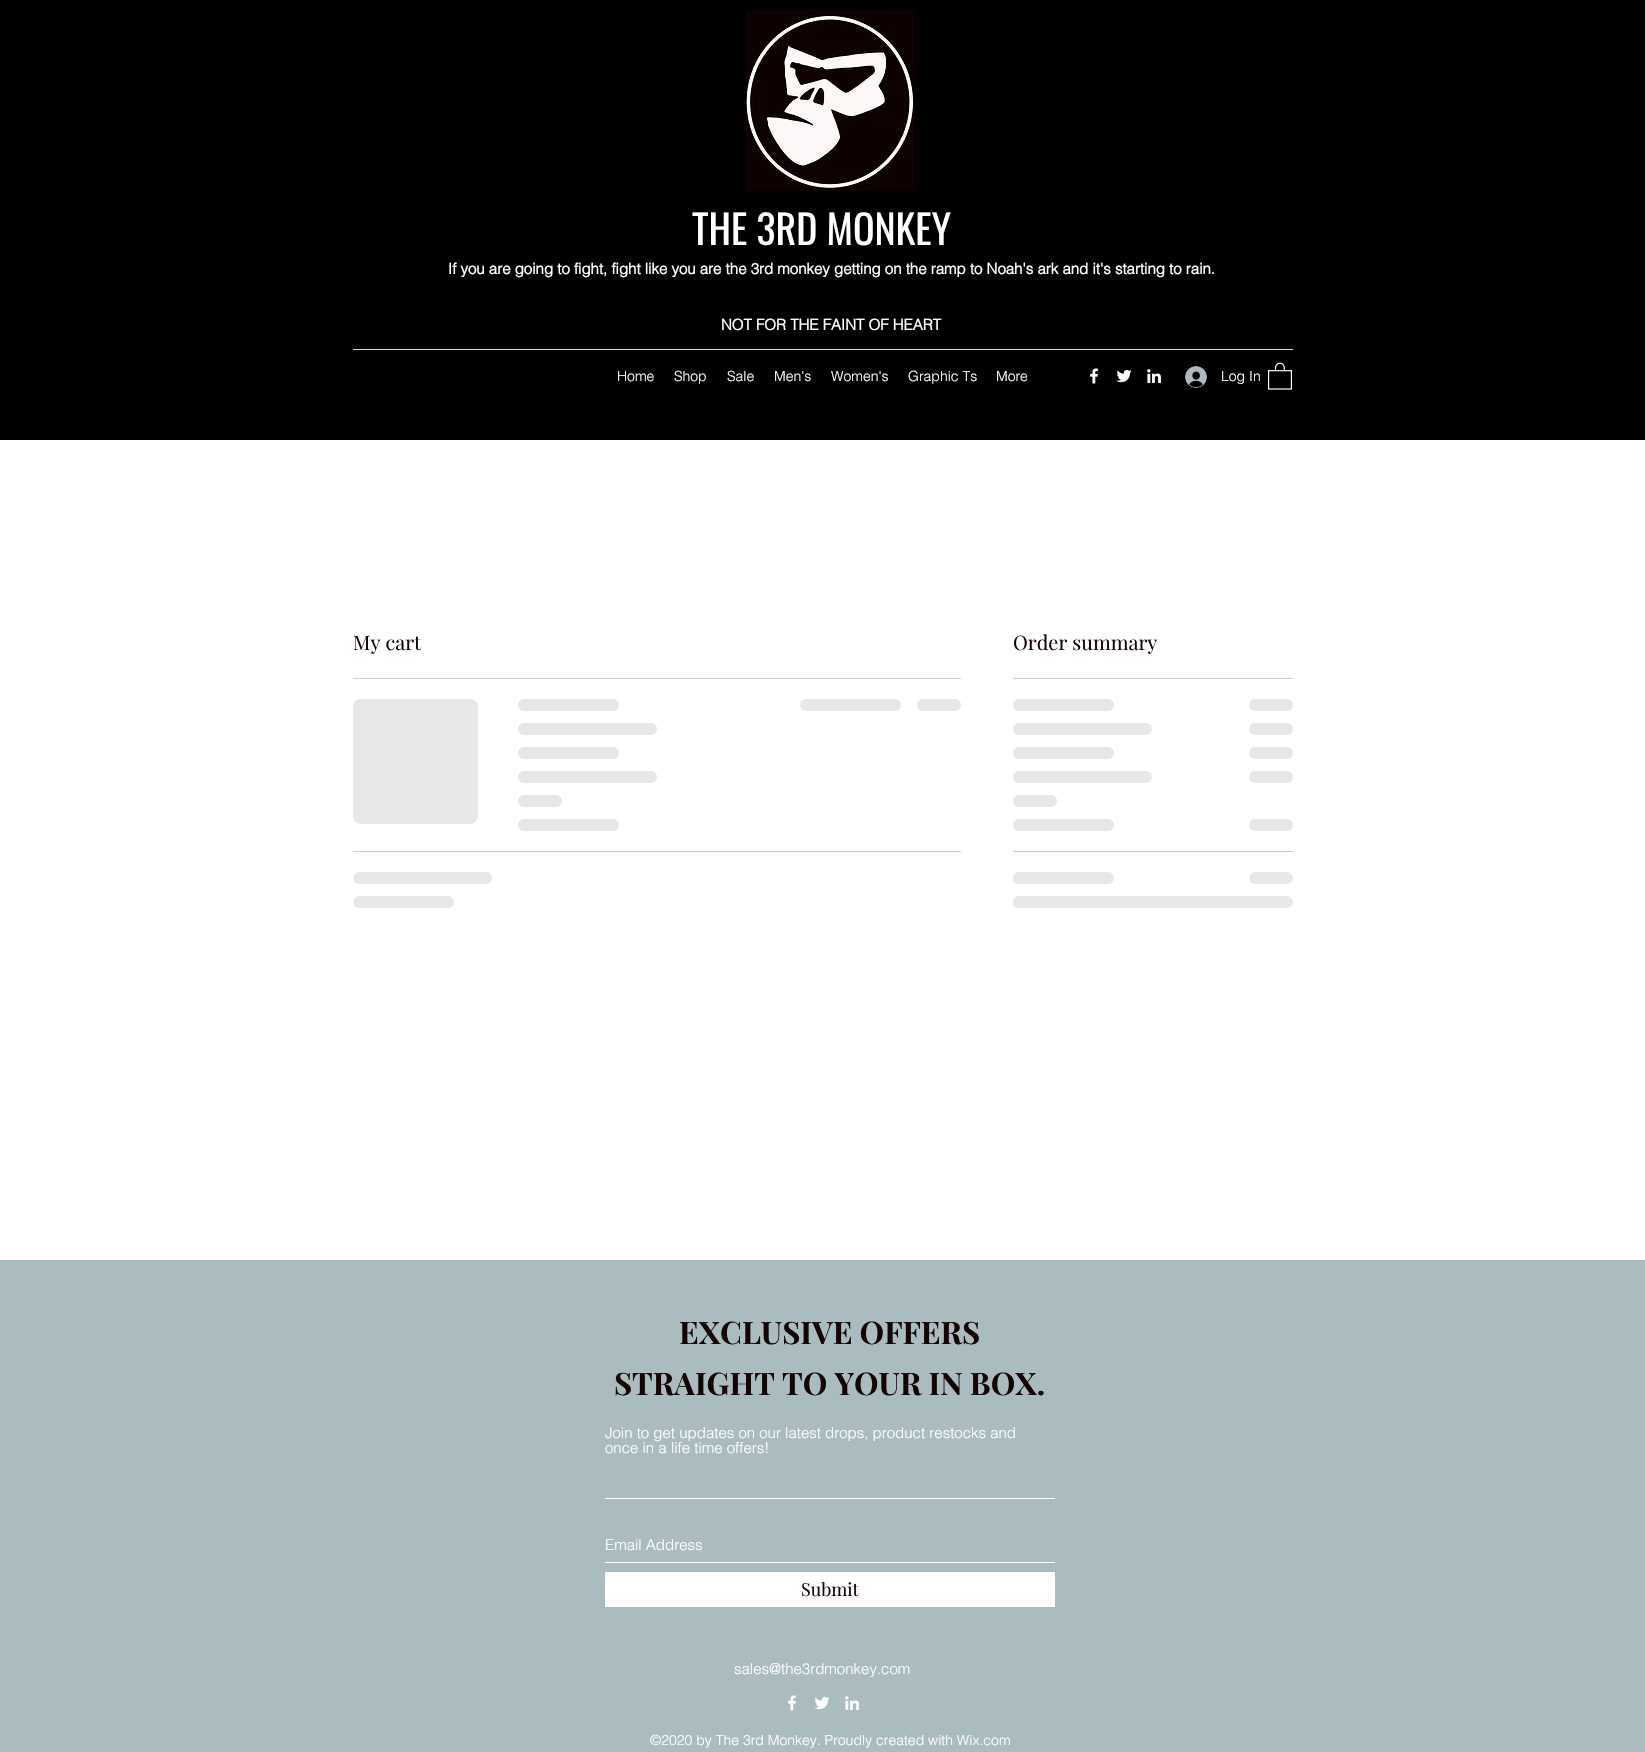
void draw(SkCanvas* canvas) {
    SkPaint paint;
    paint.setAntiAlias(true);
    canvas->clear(0xFFFFFFFF);
    paint.setColor(0xFF000000);
    canvas->drawRect(SkRect::MakeXYWH(0, 0, 1645, 440), paint);
    canvas->drawImageRect(SkImages::DeferredFromEncodedData(SkData::MakeFromFileName("img1.png")), SkRect::MakeXYWH(746, 10, 169, 181), SkSamplingOptions());
    SkFont font1(fontMgr->matchFamilyStyle("Oswald", SkFontStyle::Normal()), 40);
    font1.setSubpixel(true);
    paint.setColor(0xFFFFFFFF);
    canvas->drawString("THE 3RD MONKEY", 692, 245, font1, paint);
    SkFont font2(fontMgr->matchFamilyStyle("helvetica", SkFontStyle::Bold()), 15);
    font2.setSubpixel(true);
    canvas->drawString("If you are going to fight, fight like you are the 3rd monkey getting on the ramp to Noah's ark and it's starting to rain.", 448, 274, font2, paint);
    canvas->drawString("NOT FOR THE FAINT OF HEART", 721, 330, font2, paint);
    paint.setColor(0xFFD9D9D9);
    canvas->drawRect(SkRect::MakeXYWH(353, 349, 940, 1), paint);
    SkFont font3(fontMgr->matchFamilyStyle("helvetica", SkFontStyle(300, SkFontStyle::kNormal_Width, SkFontStyle::kUpright_Slant)), 14);
    font3.setSubpixel(true);
    paint.setColor(0xFFFFFFFF);
    canvas->drawString("Home", 617, 381, font3, paint);
    canvas->drawString("Shop", 674, 381, font3, paint);
    canvas->drawString("Sale", 727, 381, font3, paint);
    canvas->drawString("Men's", 774, 381, font3, paint);
    canvas->drawString("Women's", 831, 381, font3, paint);
    canvas->drawString("Graphic Ts", 908, 381, font3, paint);
    canvas->drawString("More", 996, 381, font3, paint);
    canvas->drawImageRect(SkImages::DeferredFromEncodedData(SkData::MakeFromFileName("img2.png")), SkRect::MakeXYWH(1090, 368, 9, 16), SkSamplingOptions());
    canvas->drawImageRect(SkImages::DeferredFromEncodedData(SkData::MakeFromFileName("img3.png")), SkRect::MakeXYWH(1116, 369, 16, 14), SkSamplingOptions());
    canvas->drawImageRect(SkImages::DeferredFromEncodedData(SkData::MakeFromFileName("img4.png")), SkRect::MakeXYWH(1147, 369, 15, 15), SkSamplingOptions());
    canvas->drawImageRect(SkImages::DeferredFromEncodedData(SkData::MakeFromFileName("img5.png")), SkRect::MakeXYWH(1185, 366, 22, 22), SkSamplingOptions());
    canvas->drawString("Log In", 1221, 381, font3, paint);
    canvas->drawImageRect(SkImages::DeferredFromEncodedData(SkData::MakeFromFileName("img6.png")), SkRect::MakeXYWH(1268, 362, 24, 28), SkSamplingOptions());
    paint.setColor(0xFFD0CDCD);
    canvas->drawRect(SkRect::MakeXYWH(353, 678, 608, 1), paint);
    SkFont font4(fontMgr->matchFamilyStyle("Playfair Display", SkFontStyle::Normal()), 20);
    font4.setSubpixel(true);
    paint.setColor(0xFF140404);
    canvas->drawString("My cart", 353, 650, font4, paint);
    {
        const SkColor colors[] = {0xFFE8E6E6, 0xFFD0CDCD, 0xFFE8E6E6};
        const float stops[] = {0.25f, 0.37f, 0.63f};
        const SkPoint ends[] = {{353, 762}, {853, 762}};
        paint.setShader(SkGradientShader::MakeLinear(ends, colors, stops, 3, SkTileMode::kClamp));
        paint.setAlpha(255);
    }
    canvas->drawRoundRect(SkRect::MakeXYWH(353, 699, 125, 125), 8, 8, paint);
    {
        const SkColor colors[] = {0xFFE8E6E6, 0xFFD0CDCD, 0xFFE8E6E6};
        const float stops[] = {0.25f, 0.37f, 0.63f};
        const SkPoint ends[] = {{518, 705}, {922, 705}};
        paint.setShader(SkGradientShader::MakeLinear(ends, colors, stops, 3, SkTileMode::kClamp));
        paint.setAlpha(255);
    }
    canvas->drawRoundRect(SkRect::MakeXYWH(518, 699, 101, 12), 6, 6, paint);
    {
        const SkColor colors[] = {0xFFE8E6E6, 0xFFD0CDCD, 0xFFE8E6E6};
        const float stops[] = {0.25f, 0.37f, 0.63f};
        const SkPoint ends[] = {{518, 729}, {1074, 729}};
        paint.setShader(SkGradientShader::MakeLinear(ends, colors, stops, 3, SkTileMode::kClamp));
        paint.setAlpha(255);
    }
    canvas->drawRoundRect(SkRect::MakeXYWH(518, 723, 139, 12), 6, 6, paint);
    {
        const SkColor colors[] = {0xFFE8E6E6, 0xFFD0CDCD, 0xFFE8E6E6};
        const float stops[] = {0.25f, 0.37f, 0.63f};
        const SkPoint ends[] = {{518, 753}, {922, 753}};
        paint.setShader(SkGradientShader::MakeLinear(ends, colors, stops, 3, SkTileMode::kClamp));
        paint.setAlpha(255);
    }
    canvas->drawRoundRect(SkRect::MakeXYWH(518, 747, 101, 12), 6, 6, paint);
    {
        const SkColor colors[] = {0xFFE8E6E6, 0xFFD0CDCD, 0xFFE8E6E6};
        const float stops[] = {0.25f, 0.37f, 0.63f};
        const SkPoint ends[] = {{518, 777}, {1074, 777}};
        paint.setShader(SkGradientShader::MakeLinear(ends, colors, stops, 3, SkTileMode::kClamp));
        paint.setAlpha(255);
    }
    canvas->drawRoundRect(SkRect::MakeXYWH(518, 771, 139, 12), 6, 6, paint);
    {
        const SkColor colors[] = {0xFFE8E6E6, 0xFFD0CDCD, 0xFFE8E6E6};
        const float stops[] = {0.25f, 0.37f, 0.63f};
        const SkPoint ends[] = {{518, 801}, {694, 801}};
        paint.setShader(SkGradientShader::MakeLinear(ends, colors, stops, 3, SkTileMode::kClamp));
        paint.setAlpha(255);
    }
    canvas->drawRoundRect(SkRect::MakeXYWH(518, 795, 44, 12), 6, 6, paint);
    {
        const SkColor colors[] = {0xFFE8E6E6, 0xFFD0CDCD, 0xFFE8E6E6};
        const float stops[] = {0.25f, 0.37f, 0.63f};
        const SkPoint ends[] = {{518, 825}, {922, 825}};
        paint.setShader(SkGradientShader::MakeLinear(ends, colors, stops, 3, SkTileMode::kClamp));
        paint.setAlpha(255);
    }
    canvas->drawRoundRect(SkRect::MakeXYWH(518, 819, 101, 12), 6, 6, paint);
    {
        const SkColor colors[] = {0xFFE8E6E6, 0xFFD0CDCD, 0xFFE8E6E6};
        const float stops[] = {0.25f, 0.37f, 0.63f};
        const SkPoint ends[] = {{800, 705}, {1204, 705}};
        paint.setShader(SkGradientShader::MakeLinear(ends, colors, stops, 3, SkTileMode::kClamp));
        paint.setAlpha(255);
    }
    canvas->drawRoundRect(SkRect::MakeXYWH(800, 699, 101, 12), 6, 6, paint);
    {
        const SkColor colors[] = {0xFFE8E6E6, 0xFFD0CDCD, 0xFFE8E6E6};
        const float stops[] = {0.25f, 0.37f, 0.63f};
        const SkPoint ends[] = {{917, 705}, {1093, 705}};
        paint.setShader(SkGradientShader::MakeLinear(ends, colors, stops, 3, SkTileMode::kClamp));
        paint.setAlpha(255);
    }
    canvas->drawRoundRect(SkRect::MakeXYWH(917, 699, 44, 12), 6, 6, paint);
    paint.setShader(nullptr);
    paint.setColor(0xFFD0CDCD);
    canvas->drawRect(SkRect::MakeXYWH(353, 851, 608, 1), paint);
    {
        const SkColor colors[] = {0xFFE8E6E6, 0xFFD0CDCD, 0xFFE8E6E6};
        const float stops[] = {0.25f, 0.37f, 0.63f};
        const SkPoint ends[] = {{353, 878}, {909, 878}};
        paint.setShader(SkGradientShader::MakeLinear(ends, colors, stops, 3, SkTileMode::kClamp));
        paint.setAlpha(255);
    }
    canvas->drawRoundRect(SkRect::MakeXYWH(353, 872, 139, 12), 6, 6, paint);
    {
        const SkColor colors[] = {0xFFE8E6E6, 0xFFD0CDCD, 0xFFE8E6E6};
        const float stops[] = {0.25f, 0.37f, 0.63f};
        const SkPoint ends[] = {{353, 902}, {757, 902}};
        paint.setShader(SkGradientShader::MakeLinear(ends, colors, stops, 3, SkTileMode::kClamp));
        paint.setAlpha(255);
    }
    canvas->drawRoundRect(SkRect::MakeXYWH(353, 896, 101, 12), 6, 6, paint);
    paint.setShader(nullptr);
    paint.setColor(0xFFD0CDCD);
    canvas->drawRect(SkRect::MakeXYWH(1013, 678, 280, 1), paint);
    paint.setColor(0xFF140404);
    canvas->drawString("Order summary", 1013, 650, font4, paint);
    {
        const SkColor colors[] = {0xFFE8E6E6, 0xFFD0CDCD, 0xFFE8E6E6};
        const float stops[] = {0.25f, 0.37f, 0.63f};
        const SkPoint ends[] = {{1013, 705}, {1417, 705}};
        paint.setShader(SkGradientShader::MakeLinear(ends, colors, stops, 3, SkTileMode::kClamp));
        paint.setAlpha(255);
    }
    canvas->drawRoundRect(SkRect::MakeXYWH(1013, 699, 101, 12), 6, 6, paint);
    {
        const SkColor colors[] = {0xFFE8E6E6, 0xFFD0CDCD, 0xFFE8E6E6};
        const float stops[] = {0.25f, 0.37f, 0.63f};
        const SkPoint ends[] = {{1249, 705}, {1425, 705}};
        paint.setShader(SkGradientShader::MakeLinear(ends, colors, stops, 3, SkTileMode::kClamp));
        paint.setAlpha(255);
    }
    canvas->drawRoundRect(SkRect::MakeXYWH(1249, 699, 44, 12), 6, 6, paint);
    {
        const SkColor colors[] = {0xFFE8E6E6, 0xFFD0CDCD, 0xFFE8E6E6};
        const float stops[] = {0.25f, 0.37f, 0.63f};
        const SkPoint ends[] = {{1013, 729}, {1569, 729}};
        paint.setShader(SkGradientShader::MakeLinear(ends, colors, stops, 3, SkTileMode::kClamp));
        paint.setAlpha(255);
    }
    canvas->drawRoundRect(SkRect::MakeXYWH(1013, 723, 139, 12), 6, 6, paint);
    {
        const SkColor colors[] = {0xFFE8E6E6, 0xFFD0CDCD, 0xFFE8E6E6};
        const float stops[] = {0.25f, 0.37f, 0.63f};
        const SkPoint ends[] = {{1249, 729}, {1425, 729}};
        paint.setShader(SkGradientShader::MakeLinear(ends, colors, stops, 3, SkTileMode::kClamp));
        paint.setAlpha(255);
    }
    canvas->drawRoundRect(SkRect::MakeXYWH(1249, 723, 44, 12), 6, 6, paint);
    {
        const SkColor colors[] = {0xFFE8E6E6, 0xFFD0CDCD, 0xFFE8E6E6};
        const float stops[] = {0.25f, 0.37f, 0.63f};
        const SkPoint ends[] = {{1013, 753}, {1417, 753}};
        paint.setShader(SkGradientShader::MakeLinear(ends, colors, stops, 3, SkTileMode::kClamp));
        paint.setAlpha(255);
    }
    canvas->drawRoundRect(SkRect::MakeXYWH(1013, 747, 101, 12), 6, 6, paint);
    {
        const SkColor colors[] = {0xFFE8E6E6, 0xFFD0CDCD, 0xFFE8E6E6};
        const float stops[] = {0.25f, 0.37f, 0.63f};
        const SkPoint ends[] = {{1249, 753}, {1425, 753}};
        paint.setShader(SkGradientShader::MakeLinear(ends, colors, stops, 3, SkTileMode::kClamp));
        paint.setAlpha(255);
    }
    canvas->drawRoundRect(SkRect::MakeXYWH(1249, 747, 44, 12), 6, 6, paint);
    {
        const SkColor colors[] = {0xFFE8E6E6, 0xFFD0CDCD, 0xFFE8E6E6};
        const float stops[] = {0.25f, 0.37f, 0.63f};
        const SkPoint ends[] = {{1013, 777}, {1569, 777}};
        paint.setShader(SkGradientShader::MakeLinear(ends, colors, stops, 3, SkTileMode::kClamp));
        paint.setAlpha(255);
    }
    canvas->drawRoundRect(SkRect::MakeXYWH(1013, 771, 139, 12), 6, 6, paint);
    {
        const SkColor colors[] = {0xFFE8E6E6, 0xFFD0CDCD, 0xFFE8E6E6};
        const float stops[] = {0.25f, 0.37f, 0.63f};
        const SkPoint ends[] = {{1249, 777}, {1425, 777}};
        paint.setShader(SkGradientShader::MakeLinear(ends, colors, stops, 3, SkTileMode::kClamp));
        paint.setAlpha(255);
    }
    canvas->drawRoundRect(SkRect::MakeXYWH(1249, 771, 44, 12), 6, 6, paint);
    {
        const SkColor colors[] = {0xFFE8E6E6, 0xFFD0CDCD, 0xFFE8E6E6};
        const float stops[] = {0.25f, 0.37f, 0.63f};
        const SkPoint ends[] = {{1013, 801}, {1189, 801}};
        paint.setShader(SkGradientShader::MakeLinear(ends, colors, stops, 3, SkTileMode::kClamp));
        paint.setAlpha(255);
    }
    canvas->drawRoundRect(SkRect::MakeXYWH(1013, 795, 44, 12), 6, 6, paint);
    {
        const SkColor colors[] = {0xFFE8E6E6, 0xFFD0CDCD, 0xFFE8E6E6};
        const float stops[] = {0.25f, 0.37f, 0.63f};
        const SkPoint ends[] = {{1013, 825}, {1417, 825}};
        paint.setShader(SkGradientShader::MakeLinear(ends, colors, stops, 3, SkTileMode::kClamp));
        paint.setAlpha(255);
    }
    canvas->drawRoundRect(SkRect::MakeXYWH(1013, 819, 101, 12), 6, 6, paint);
    {
        const SkColor colors[] = {0xFFE8E6E6, 0xFFD0CDCD, 0xFFE8E6E6};
        const float stops[] = {0.25f, 0.37f, 0.63f};
        const SkPoint ends[] = {{1249, 825}, {1425, 825}};
        paint.setShader(SkGradientShader::MakeLinear(ends, colors, stops, 3, SkTileMode::kClamp));
        paint.setAlpha(255);
    }
    canvas->drawRoundRect(SkRect::MakeXYWH(1249, 819, 44, 12), 6, 6, paint);
    paint.setShader(nullptr);
    paint.setColor(0xFFD0CDCD);
    canvas->drawRect(SkRect::MakeXYWH(1013, 851, 280, 1), paint);
    {
        const SkColor colors[] = {0xFFE8E6E6, 0xFFD0CDCD, 0xFFE8E6E6};
        const float stops[] = {0.25f, 0.37f, 0.63f};
        const SkPoint ends[] = {{1013, 878}, {1417, 878}};
        paint.setShader(SkGradientShader::MakeLinear(ends, colors, stops, 3, SkTileMode::kClamp));
        paint.setAlpha(255);
    }
    canvas->drawRoundRect(SkRect::MakeXYWH(1013, 872, 101, 12), 6, 6, paint);
    {
        const SkColor colors[] = {0xFFE8E6E6, 0xFFD0CDCD, 0xFFE8E6E6};
        const float stops[] = {0.25f, 0.37f, 0.63f};
        const SkPoint ends[] = {{1249, 878}, {1425, 878}};
        paint.setShader(SkGradientShader::MakeLinear(ends, colors, stops, 3, SkTileMode::kClamp));
        paint.setAlpha(255);
    }
    canvas->drawRoundRect(SkRect::MakeXYWH(1249, 872, 44, 12), 6, 6, paint);
    {
        const SkColor colors[] = {0xFFE8E6E6, 0xFFD0CDCD, 0xFFE8E6E6};
        const float stops[] = {0.25f, 0.37f, 0.63f};
        const SkPoint ends[] = {{1013, 902}, {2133, 902}};
        paint.setShader(SkGradientShader::MakeLinear(ends, colors, stops, 3, SkTileMode::kClamp));
        paint.setAlpha(255);
    }
    canvas->drawRoundRect(SkRect::MakeXYWH(1013, 896, 280, 12), 6, 6, paint);
    paint.setShader(nullptr);
    paint.setColor(0xFFAABCBF);
    canvas->drawRect(SkRect::MakeXYWH(0, 1260, 1645, 492), paint);
    SkFont font5(fontMgr->matchFamilyStyle("Playfair Display", SkFontStyle::Bold()), 31);
    font5.setSubpixel(true);
    paint.setColor(0xFF140404);
    canvas->drawString("EXCLUSIVE OFFERS", 679, 1344, font5, paint);
    canvas->drawString("STRAIGHT TO YOUR IN BOX.", 614, 1395, font5, paint);
    SkFont font6(fontMgr->matchFamilyStyle("helvetica", SkFontStyle(300, SkFontStyle::kNormal_Width, SkFontStyle::kUpright_Slant)), 15);
    font6.setSubpixel(true);
    paint.setColor(0xFFFFFFFF);
    canvas->drawString("Join to get updates on our latest drops, product restocks and", 605, 1438, font6, paint);
    canvas->drawString("once in a life time offers!", 605, 1453, font6, paint);
    canvas->drawRect(SkRect::MakeXYWH(605, 1498, 450, 1), paint);
    canvas->drawRect(SkRect::MakeXYWH(605, 1562, 450, 1), paint);
    canvas->drawString("Email Address", 605, 1550, font6, paint);
    canvas->drawRect(SkRect::MakeXYWH(605, 1572, 450, 35), paint);
    SkFont font7(fontMgr->matchFamilyStyle("Playfair Display", SkFontStyle::Normal()), 18);
    font7.setSubpixel(true);
    paint.setColor(0xFF140404);
    canvas->drawString("Submit", 801, 1596, font7, paint);
    paint.setColor(0xFFFFFFFF);
    canvas->drawString("sales@the3rdmonkey.com", 734, 1674, font6, paint);
    canvas->drawImageRect(SkImages::DeferredFromEncodedData(SkData::MakeFromFileName("img7.png")), SkRect::MakeXYWH(788, 1695, 8, 16), SkSamplingOptions());
    canvas->drawImageRect(SkImages::DeferredFromEncodedData(SkData::MakeFromFileName("img8.png")), SkRect::MakeXYWH(814, 1696, 16, 14), SkSamplingOptions());
    canvas->drawImageRect(SkImages::DeferredFromEncodedData(SkData::MakeFromFileName("img9.png")), SkRect::MakeXYWH(845, 1696, 15, 14), SkSamplingOptions());
    canvas->drawString("©2020 by The 3rd Monkey. Proudly created with Wix.com", 650, 1745, font3, paint);
}
